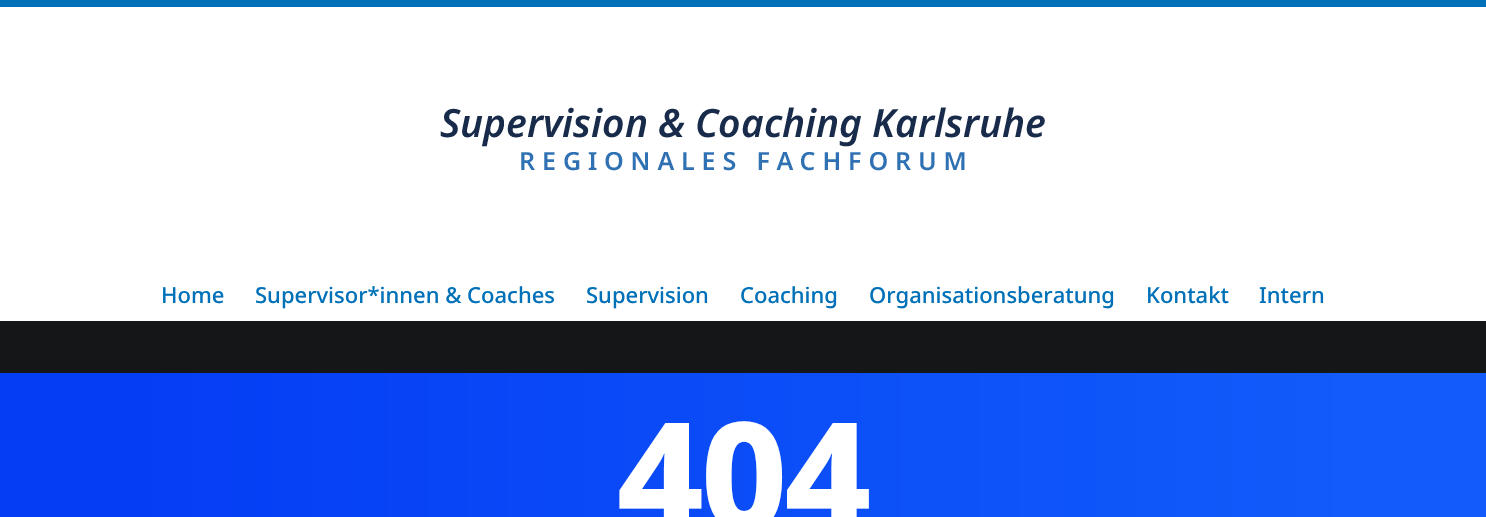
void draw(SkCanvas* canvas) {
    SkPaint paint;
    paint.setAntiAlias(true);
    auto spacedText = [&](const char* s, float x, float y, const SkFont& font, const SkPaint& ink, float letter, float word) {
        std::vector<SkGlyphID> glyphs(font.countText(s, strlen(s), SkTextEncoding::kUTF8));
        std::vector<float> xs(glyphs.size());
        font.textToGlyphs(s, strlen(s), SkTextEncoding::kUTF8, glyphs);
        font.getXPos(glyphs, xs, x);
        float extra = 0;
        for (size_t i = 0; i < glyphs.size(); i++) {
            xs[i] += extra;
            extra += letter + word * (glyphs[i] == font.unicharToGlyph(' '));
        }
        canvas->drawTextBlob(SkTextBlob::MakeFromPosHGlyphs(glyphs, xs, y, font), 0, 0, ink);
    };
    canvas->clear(0xFF141618);
    paint.setColor(0xFF0071B8);
    canvas->drawRect(SkRect::MakeXYWH(0, 0, 1486, 7), paint);
    paint.setColor(0xFFFFFFFF);
    canvas->drawRect(SkRect::MakeXYWH(0, 7, 1486, 314), paint);
    canvas->drawImageRect(SkImages::DeferredFromEncodedData(SkData::MakeFromFileName("img1.png")), SkRect::MakeXYWH(440, 107, 605, 64), SkSamplingOptions());
    SkFont font1(fontMgr->matchFamilyStyle("Noto Sans", SkFontStyle(500, SkFontStyle::kNormal_Width, SkFontStyle::kUpright_Slant)), 22);
    font1.setSubpixel(true);
    paint.setColor(0xFF0071B8);
    canvas->drawString("Home", 161, 303, font1, paint);
    canvas->drawString("Supervisor*innen & Coaches", 255, 303, font1, paint);
    canvas->drawString("Supervision", 586, 303, font1, paint);
    canvas->drawString("Coaching", 740, 303, font1, paint);
    canvas->drawString("Organisationsberatung", 869, 303, font1, paint);
    canvas->drawString("Kontakt", 1146, 303, font1, paint);
    canvas->drawString("Intern", 1259, 303, font1, paint);
    {
        const SkColor colors[] = {0xFF115CFA, 0xFF053DF5};
        const float stops[] = {0.09f, 0.91f};
        const SkPoint ends[] = {{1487, 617}, {-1, 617}};
        paint.setShader(SkGradientShader::MakeLinear(ends, colors, stops, 2, SkTileMode::kClamp));
        paint.setAlpha(255);
    }
    canvas->drawRect(SkRect::MakeXYWH(0, 373, 1486, 144), paint);
    SkFont font2(fontMgr->matchFamilyStyle("Noto Sans", SkFontStyle(800, SkFontStyle::kNormal_Width, SkFontStyle::kUpright_Slant)), 150);
    font2.setSubpixel(true);
    paint.setShader(nullptr);
    paint.setColor(0xFFFFFFFF);
    spacedText("404", 617, 530, font2, paint, -3, 0);
}
